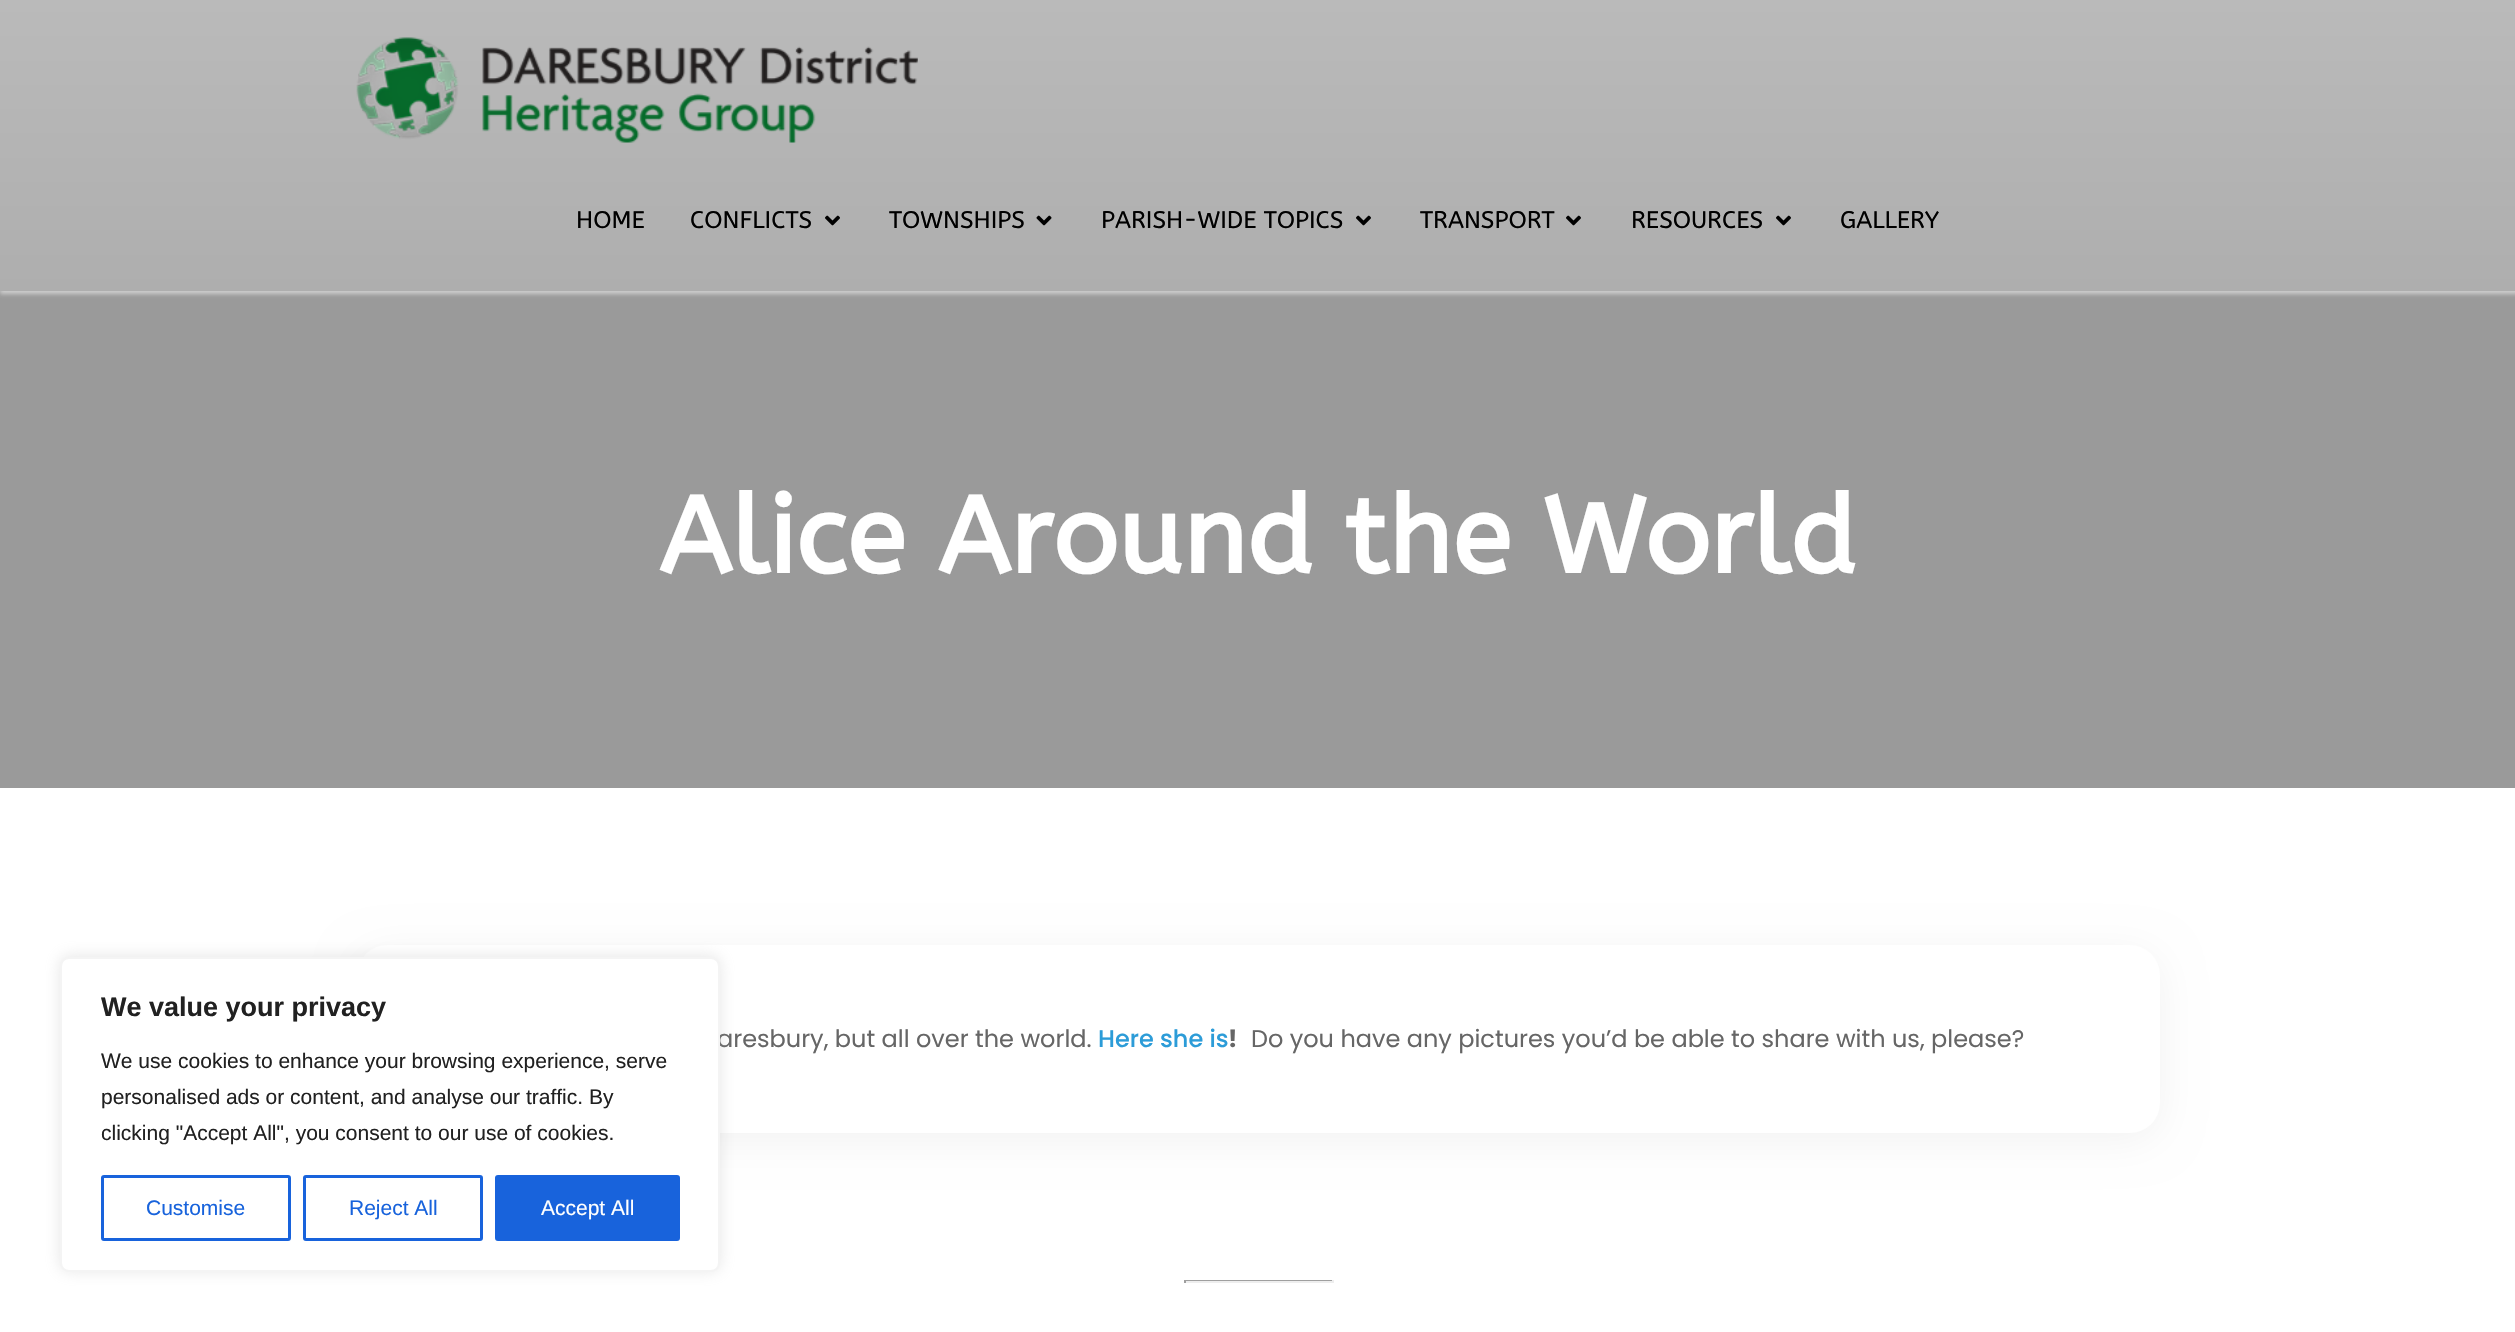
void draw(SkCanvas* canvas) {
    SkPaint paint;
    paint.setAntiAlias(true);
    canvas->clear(0xFFFFFFFF);
    paint.setColor(0xFF9A9A9A);
    canvas->drawRect(SkRect::MakeXYWH(0, 291, 2515, 497), paint);
    paint.setColor(0x80FFFFFF);
    paint.setMaskFilter(SkMaskFilter::MakeBlur(kNormal_SkBlurStyle, 2));
    canvas->drawRect(SkRect::MakeXYWH(0, 0, 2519, 294), paint);
    paint.setMaskFilter(nullptr);
    {
        const SkColor colors[] = {0xFFBABABA, 0xFFAEAEAE};
        const float stops[] = {0, 1};
        const SkPoint ends[] = {{1258, 0}, {1258, 291}};
        paint.setShader(SkGradientShader::MakeLinear(ends, colors, stops, 2, SkTileMode::kClamp));
        paint.setAlpha(255);
    }
    canvas->drawRect(SkRect::MakeXYWH(0, 0, 2515, 291), paint);
    canvas->drawImageRect(SkImages::DeferredFromEncodedData(SkData::MakeFromFileName("img1.png")), SkRect::MakeXYWH(356, 37, 562, 106), SkSamplingOptions());
    SkFont font1(fontMgr->matchFamilyStyle("ABeeZee", SkFontStyle::Normal()), 24);
    font1.setSubpixel(true);
    paint.setShader(nullptr);
    paint.setColor(0xFF000000);
    canvas->drawString("HOME", 576, 228, font1, paint);
    canvas->drawString("CONFLICTS", 690, 228, font1, paint);
    canvas->drawImageRect(SkImages::DeferredFromEncodedData(SkData::MakeFromFileName("img2.png")), SkRect::MakeXYWH(825, 215, 15, 11), SkSamplingOptions());
    canvas->drawString("TOWNSHIPS", 889, 228, font1, paint);
    canvas->drawImageRect(SkImages::DeferredFromEncodedData(SkData::MakeFromFileName("img3.png")), SkRect::MakeXYWH(1036, 215, 16, 11), SkSamplingOptions());
    canvas->drawString("PARISH-WIDE TOPICS", 1101, 228, font1, paint);
    canvas->drawImageRect(SkImages::DeferredFromEncodedData(SkData::MakeFromFileName("img2.png")), SkRect::MakeXYWH(1356, 215, 15, 11), SkSamplingOptions());
    canvas->drawString("TRANSPORT", 1420, 228, font1, paint);
    canvas->drawImageRect(SkImages::DeferredFromEncodedData(SkData::MakeFromFileName("img2.png")), SkRect::MakeXYWH(1566, 215, 15, 11), SkSamplingOptions());
    canvas->drawString("RESOURCES", 1631, 228, font1, paint);
    canvas->drawImageRect(SkImages::DeferredFromEncodedData(SkData::MakeFromFileName("img2.png")), SkRect::MakeXYWH(1776, 215, 15, 11), SkSamplingOptions());
    canvas->drawString("GALLERY", 1840, 228, font1, paint);
    SkFont font2(fontMgr->matchFamilyStyle("ABeeZee", SkFontStyle::Bold()), 108);
    font2.setSubpixel(true);
    paint.setColor(0xFFFFFFFF);
    canvas->drawString("Alice Around the World", 659, 573, font2, paint);
    paint.setColor(0x0D000000);
    paint.setMaskFilter(SkMaskFilter::MakeBlur(kNormal_SkBlurStyle, 21));
    canvas->drawRoundRect(SkRect::MakeXYWH(357, 953, 1803, 187), 30, 30, paint);
    paint.setMaskFilter(nullptr);
    paint.setColor(0xFFFFFFFF);
    canvas->drawRoundRect(SkRect::MakeXYWH(357, 945, 1803, 188), 30, 30, paint);
    SkFont font3(fontMgr->matchFamilyStyle("Poppins", SkFontStyle::Normal()), 24);
    font3.setSubpixel(true);
    paint.setColor(0xFF666666);
    canvas->drawString("aresbury, but all over the world.", 717, 1047, font3, paint);
    SkFont font4(fontMgr->matchFamilyStyle("Poppins", SkFontStyle(500, SkFontStyle::kNormal_Width, SkFontStyle::kUpright_Slant)), 24);
    font4.setSubpixel(true);
    paint.setColor(0xFF2C9CD8);
    canvas->drawString("Here she is", 1098, 1047, font4, paint);
    SkFont font5(fontMgr->matchFamilyStyle("Poppins", SkFontStyle::Bold()), 24);
    font5.setSubpixel(true);
    paint.setColor(0xFF666666);
    canvas->drawString("!", 1228, 1047, font5, paint);
    canvas->drawString("Do you have any pictures you’d be able to share with us, please?", 1251, 1047, font3, paint);
    paint.setColor(0xFF9F9F9F);
    canvas->drawRect(SkRect::MakeXYWH(1184, 1280, 150, 1), paint);
    paint.setColor(0xFFEEEEEE);
    canvas->drawRect(SkRect::MakeXYWH(1332, 1280, 2, 3), paint);
    canvas->drawRect(SkRect::MakeXYWH(1184, 1281, 150, 2), paint);
    paint.setColor(0xFF9F9F9F);
    canvas->drawRect(SkRect::MakeXYWH(1184, 1280, 2, 3), paint);
    paint.setColor(0x4DACABAB);
    paint.setMaskFilter(SkMaskFilter::MakeBlur(kNormal_SkBlurStyle, 7.5f));
    canvas->drawRoundRect(SkRect::MakeXYWH(60, 956, 660, 315), 9, 9, paint);
    paint.setMaskFilter(nullptr);
    paint.setColor(0xFFFFFFFF);
    canvas->drawRoundRect(SkRect::MakeXYWH(61, 958, 658, 313), 8, 8, paint);
    paint.setStyle(SkPaint::kStroke_Style);
    paint.setStrokeWidth(2);
    paint.setColor(0xFFF4F4F4);
    canvas->drawRoundRect(SkRect::MakeXYWH(61, 958, 658, 313), 8, 8, paint);
    SkFont font6(fontMgr->matchFamilyStyle("Liberation Sans", SkFontStyle::Bold()), 27);
    font6.setSubpixel(true);
    paint.setStyle(SkPaint::kFill_Style);
    paint.setColor(0xFF212121);
    canvas->drawString("We value your privacy", 101, 1016, font6, paint);
    SkFont font7(fontMgr->matchFamilyStyle("Liberation Sans", SkFontStyle::Normal()), 21);
    font7.setSubpixel(true);
    canvas->drawString("We use cookies to enhance your browsing experience, serve", 101, 1068, font7, paint);
    canvas->drawString("personalised ads or content, and analyse our traffic. By", 101, 1104, font7, paint);
    canvas->drawString("clicking \"Accept All\", you consent to our use of cookies.", 101, 1140, font7, paint);
    paint.setStyle(SkPaint::kStroke_Style);
    paint.setStrokeWidth(3);
    paint.setColor(0xFF1863DC);
    canvas->drawRoundRect(SkRect::MakeXYWH(102.5f, 1176.5f, 187, 63), 1.5f, 1.5f, paint);
    paint.setStyle(SkPaint::kFill_Style);
    canvas->drawString("Customise", 146, 1215, font7, paint);
    paint.setStyle(SkPaint::kStroke_Style);
    canvas->drawRoundRect(SkRect::MakeXYWH(304.5f, 1176.5f, 177, 63), 1.5f, 1.5f, paint);
    paint.setStyle(SkPaint::kFill_Style);
    canvas->drawString("Reject All", 349, 1215, font7, paint);
    canvas->drawRoundRect(SkRect::MakeXYWH(496.5f, 1176.5f, 182, 63), 1.5f, 1.5f, paint);
    paint.setStyle(SkPaint::kStroke_Style);
    canvas->drawRoundRect(SkRect::MakeXYWH(496.5f, 1176.5f, 182, 63), 1.5f, 1.5f, paint);
    paint.setStyle(SkPaint::kFill_Style);
    paint.setColor(0xFFFFFFFF);
    canvas->drawString("Accept All", 541, 1215, font7, paint);
}
